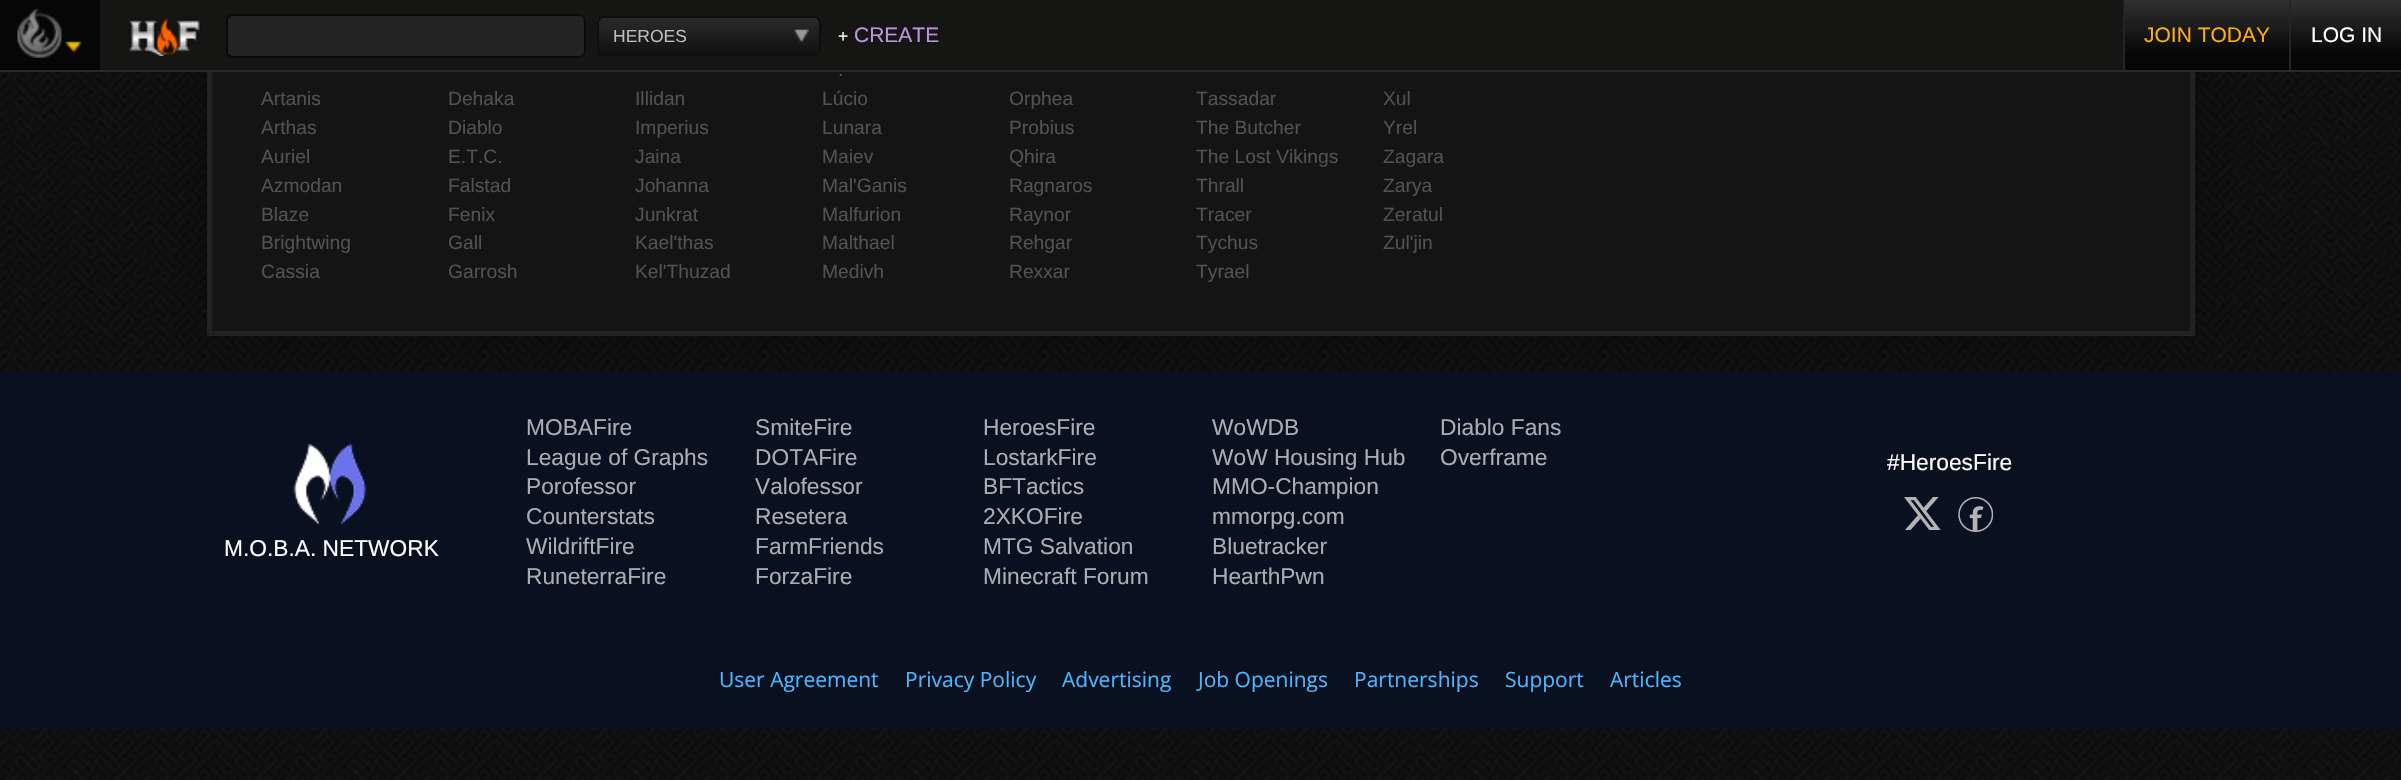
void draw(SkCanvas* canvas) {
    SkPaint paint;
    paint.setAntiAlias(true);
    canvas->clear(0xFFFFFFFF);
    canvas->drawImageRect(SkImages::DeferredFromEncodedData(SkData::MakeFromFileName("img1.png")), SkRect::MakeXYWH(0, 72, 2401, 708), SkSamplingOptions());
    paint.setColor(0xFF091120);
    canvas->drawRect(SkRect::MakeXYWH(0, 371, 2401, 357), paint);
    paint.setColor(0x59000000);
    paint.setMaskFilter(SkMaskFilter::MakeBlur(kNormal_SkBlurStyle, 30.5f));
    canvas->drawRect(SkRect::MakeXYWH(207, -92, 1988, 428), paint);
    paint.setMaskFilter(nullptr);
    paint.setColor(0xFF141414);
    canvas->drawRect(SkRect::MakeXYWH(212, 72, 1978, 259), paint);
    paint.setStyle(SkPaint::kStroke_Style);
    paint.setStrokeWidth(5);
    paint.setColor(0xFF222222);
    canvas->drawRect(SkRect::MakeXYWH(209.5f, -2.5f, 1983, 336), paint);
    paint.setStyle(SkPaint::kFill_Style);
    paint.setColor(0xFF151514);
    canvas->drawRect(SkRect::MakeXYWH(100, 0, 2023, 70), paint);
    paint.setColor(0xFF292929);
    canvas->drawRect(SkRect::MakeXYWH(0, 70, 2401, 2), paint);
    paint.setColor(0xFF242424);
    canvas->drawRoundRect(SkRect::MakeXYWH(227, 15, 358, 42), 6, 6, paint);
    paint.setStyle(SkPaint::kStroke_Style);
    paint.setStrokeWidth(2);
    paint.setColor(0xFF0A0A0A);
    canvas->drawRoundRect(SkRect::MakeXYWH(227, 15, 358, 42), 6, 6, paint);
    canvas->save();
    canvas->clipPath(SkPathBuilder().moveTo(604, 16).lineTo(814, 16).cubicTo(818, 16, 821, 19, 821, 23).lineTo(821, 49).cubicTo(821, 53, 818, 56, 814, 56).lineTo(604, 56).cubicTo(600, 56, 597, 53, 597, 49).lineTo(597, 23).cubicTo(597, 19, 600, 16, 604, 16).close().detach(), true);
    paint.setStyle(SkPaint::kFill_Style);
    {
        const SkColor colors[] = {0xFF2B2B2B, 0xFF111111};
        const float stops[] = {0, 1};
        const SkPoint ends[] = {{709, 17}, {709, 54}};
        paint.setShader(SkGradientShader::MakeLinear(ends, colors, stops, 2, SkTileMode::kClamp));
        paint.setAlpha(255);
    }
    canvas->drawRect(SkRect::MakeXYWH(597, 18, 224, 36), paint);
    canvas->restore();
    paint.setStyle(SkPaint::kStroke_Style);
    paint.setShader(nullptr);
    paint.setColor(0xFF0E0E0E);
    canvas->drawRoundRect(SkRect::MakeXYWH(598, 17, 222, 38), 6, 6, paint);
    SkFont font1(fontMgr->matchFamilyStyle("Liberation Sans", SkFontStyle::Normal()), 17.5f);
    font1.setSubpixel(true);
    paint.setStyle(SkPaint::kFill_Style);
    paint.setColor(0xFFBCBCBC);
    canvas->drawString("HEROES", 613, 42, font1, paint);
    canvas->drawImageRect(SkImages::DeferredFromEncodedData(SkData::MakeFromFileName("img2.png")), SkRect::MakeXYWH(794, 29, 15, 14), SkSamplingOptions());
    paint.setColor(0xFF060606);
    canvas->drawRect(SkRect::MakeXYWH(0, 0, 100, 70), paint);
    canvas->drawImageRect(SkImages::DeferredFromEncodedData(SkData::MakeFromFileName("img3.png")), SkRect::MakeXYWH(17, 8, 45, 50), SkSamplingOptions());
    canvas->drawImageRect(SkImages::DeferredFromEncodedData(SkData::MakeFromFileName("img4.png")), SkRect::MakeXYWH(64, 41, 18, 12), SkSamplingOptions());
    canvas->drawImageRect(SkImages::DeferredFromEncodedData(SkData::MakeFromFileName("img5.png")), SkRect::MakeXYWH(129, 17, 72, 39), SkSamplingOptions());
    paint.setColor(0xFFFFFFFF);
    canvas->drawString("+", 838, 42, font1, paint);
    SkFont font2(fontMgr->matchFamilyStyle("Liberation Sans", SkFontStyle::Normal()), 21);
    font2.setSubpixel(true);
    paint.setColor(0xFFBC93E2);
    canvas->drawString("CREATE", 854, 42, font2, paint);
    {
        const SkColor colors[] = {0xFF303030, 0xFF060606};
        const float stops[] = {0, 0.78f};
        const SkPoint ends[] = {{2207, 0}, {2207, 70}};
        paint.setShader(SkGradientShader::MakeLinear(ends, colors, stops, 2, SkTileMode::kClamp));
        paint.setAlpha(255);
    }
    canvas->drawRect(SkRect::MakeXYWH(2125, 0, 164, 70), paint);
    paint.setShader(nullptr);
    paint.setColor(0xFF242424);
    canvas->drawRect(SkRect::MakeXYWH(2123, 0, 2, 70), paint);
    paint.setColor(0xFFFBAC14);
    canvas->drawString("JOIN TODAY", 2144, 42, font2, paint);
    {
        const SkColor colors[] = {0xFF303030, 0xFF060606};
        const float stops[] = {0, 0.78f};
        const SkPoint ends[] = {{2346, 0}, {2346, 70}};
        paint.setShader(SkGradientShader::MakeLinear(ends, colors, stops, 2, SkTileMode::kClamp));
        paint.setAlpha(255);
    }
    canvas->drawRect(SkRect::MakeXYWH(2291, 0, 110, 70), paint);
    paint.setShader(nullptr);
    paint.setColor(0xFF242424);
    canvas->drawRect(SkRect::MakeXYWH(2289, 0, 2, 70), paint);
    paint.setColor(0xFFFFFFFF);
    canvas->drawString("LOG IN", 2311, 42, font2, paint);
    SkFont font3(fontMgr->matchFamilyStyle("Liberation Sans", SkFontStyle::Normal()), 19.25f);
    font3.setSubpixel(true);
    paint.setColor(0xFF515151);
    canvas->drawString(".", 838, 76, font3, paint);
    canvas->drawString("Artanis", 261, 105, font3, paint);
    canvas->drawString("Dehaka", 448, 105, font3, paint);
    canvas->drawString("Illidan", 635, 105, font3, paint);
    canvas->drawString("Lúcio", 822, 105, font3, paint);
    canvas->drawString("Orphea", 1009, 105, font3, paint);
    canvas->drawString("Tassadar", 1196, 105, font3, paint);
    canvas->drawString("Xul", 1383, 105, font3, paint);
    canvas->drawString("Arthas", 261, 134, font3, paint);
    canvas->drawString("Diablo", 448, 134, font3, paint);
    canvas->drawString("Imperius", 635, 134, font3, paint);
    canvas->drawString("Lunara", 822, 134, font3, paint);
    canvas->drawString("Probius", 1009, 134, font3, paint);
    canvas->drawString("The Butcher", 1196, 134, font3, paint);
    canvas->drawString("Yrel", 1383, 134, font3, paint);
    canvas->drawString("Auriel", 261, 163, font3, paint);
    canvas->drawString("E.T.C.", 448, 163, font3, paint);
    canvas->drawString("Jaina", 635, 163, font3, paint);
    canvas->drawString("Maiev", 822, 163, font3, paint);
    canvas->drawString("Qhira", 1009, 163, font3, paint);
    canvas->drawString("The Lost Vikings", 1196, 163, font3, paint);
    canvas->drawString("Zagara", 1383, 163, font3, paint);
    canvas->drawString("Azmodan", 261, 192, font3, paint);
    canvas->drawString("Falstad", 448, 192, font3, paint);
    canvas->drawString("Johanna", 635, 192, font3, paint);
    canvas->drawString("Mal'Ganis", 822, 192, font3, paint);
    canvas->drawString("Ragnaros", 1009, 192, font3, paint);
    canvas->drawString("Thrall", 1196, 192, font3, paint);
    canvas->drawString("Zarya", 1383, 192, font3, paint);
    canvas->drawString("Blaze", 261, 221, font3, paint);
    canvas->drawString("Fenix", 448, 221, font3, paint);
    canvas->drawString("Junkrat", 635, 221, font3, paint);
    canvas->drawString("Malfurion", 822, 221, font3, paint);
    canvas->drawString("Raynor", 1009, 221, font3, paint);
    canvas->drawString("Tracer", 1196, 221, font3, paint);
    canvas->drawString("Zeratul", 1383, 221, font3, paint);
    canvas->drawString("Brightwing", 261, 249, font3, paint);
    canvas->drawString("Gall", 448, 249, font3, paint);
    canvas->drawString("Kael'thas", 635, 249, font3, paint);
    canvas->drawString("Malthael", 822, 249, font3, paint);
    canvas->drawString("Rehgar", 1009, 249, font3, paint);
    canvas->drawString("Tychus", 1196, 249, font3, paint);
    canvas->drawString("Zul'jin", 1383, 249, font3, paint);
    canvas->drawString("Cassia", 261, 278, font3, paint);
    canvas->drawString("Garrosh", 448, 278, font3, paint);
    canvas->drawString("Kel'Thuzad", 635, 278, font3, paint);
    canvas->drawString("Medivh", 822, 278, font3, paint);
    canvas->drawString("Rexxar", 1009, 278, font3, paint);
    canvas->drawString("Tyrael", 1196, 278, font3, paint);
    SkFont font4(fontMgr->matchFamilyStyle("Liberation Sans", SkFontStyle::Normal()), 22.75f);
    font4.setSubpixel(true);
    paint.setColor(0xFFA9ACB1);
    canvas->drawString("MOBAFire", 526, 435, font4, paint);
    canvas->drawString("SmiteFire", 755, 435, font4, paint);
    canvas->drawString("HeroesFire", 983, 435, font4, paint);
    canvas->drawString("WoWDB", 1212, 435, font4, paint);
    canvas->drawString("Diablo Fans", 1440, 435, font4, paint);
    canvas->drawString("League of Graphs", 526, 465, font4, paint);
    canvas->drawString("DOTAFire", 755, 465, font4, paint);
    canvas->drawString("LostarkFire", 983, 465, font4, paint);
    canvas->drawString("WoW Housing Hub", 1212, 465, font4, paint);
    canvas->drawString("Overframe", 1440, 465, font4, paint);
    canvas->drawString("Porofessor", 526, 494, font4, paint);
    canvas->drawString("Valofessor", 755, 494, font4, paint);
    canvas->drawString("BFTactics", 983, 494, font4, paint);
    canvas->drawString("MMO-Champion", 1212, 494, font4, paint);
    canvas->drawString("Counterstats", 526, 524, font4, paint);
    canvas->drawString("Resetera", 755, 524, font4, paint);
    canvas->drawString("2XKOFire", 983, 524, font4, paint);
    canvas->drawString("mmorpg.com", 1212, 524, font4, paint);
    canvas->drawString("WildriftFire", 526, 554, font4, paint);
    canvas->drawString("FarmFriends", 755, 554, font4, paint);
    canvas->drawString("MTG Salvation", 983, 554, font4, paint);
    canvas->drawString("Bluetracker", 1212, 554, font4, paint);
    canvas->drawString("RuneterraFire", 526, 584, font4, paint);
    canvas->drawString("ForzaFire", 755, 584, font4, paint);
    canvas->drawString("Minecraft Forum", 983, 584, font4, paint);
    canvas->drawString("HearthPwn", 1212, 584, font4, paint);
    paint.setColor(0xFFFFFFFF);
    canvas->drawString("#HeroesFire", 1887, 470, font4, paint);
    canvas->drawImageRect(SkImages::DeferredFromEncodedData(SkData::MakeFromFileName("img6.png")), SkRect::MakeXYWH(1904, 497, 37, 33), SkSamplingOptions());
    canvas->drawImageRect(SkImages::DeferredFromEncodedData(SkData::MakeFromFileName("img7.png")), SkRect::MakeXYWH(1958, 497, 35, 35), SkSamplingOptions());
    canvas->drawImageRect(SkImages::DeferredFromEncodedData(SkData::MakeFromFileName("img8.png")), SkRect::MakeXYWH(293, 443, 74, 82), SkSamplingOptions());
    canvas->drawString("M.O.B.A. NETWORK", 224, 556, font4, paint);
    SkFont font5(fontMgr->matchFamilyStyle("Open Sans", SkFontStyle::Normal()), 21);
    font5.setSubpixel(true);
    paint.setColor(0xFF4EB6FF);
    canvas->drawString("User Agreement", 719, 687, font5, paint);
    canvas->drawString("Privacy Policy", 905, 687, font5, paint);
    canvas->drawString("Advertising", 1062, 687, font5, paint);
    canvas->drawString("Job Openings", 1198, 687, font5, paint);
    canvas->drawString("Partnerships", 1354, 687, font5, paint);
    canvas->drawString("Support", 1505, 687, font5, paint);
    canvas->drawString("Articles", 1610, 687, font5, paint);
}
